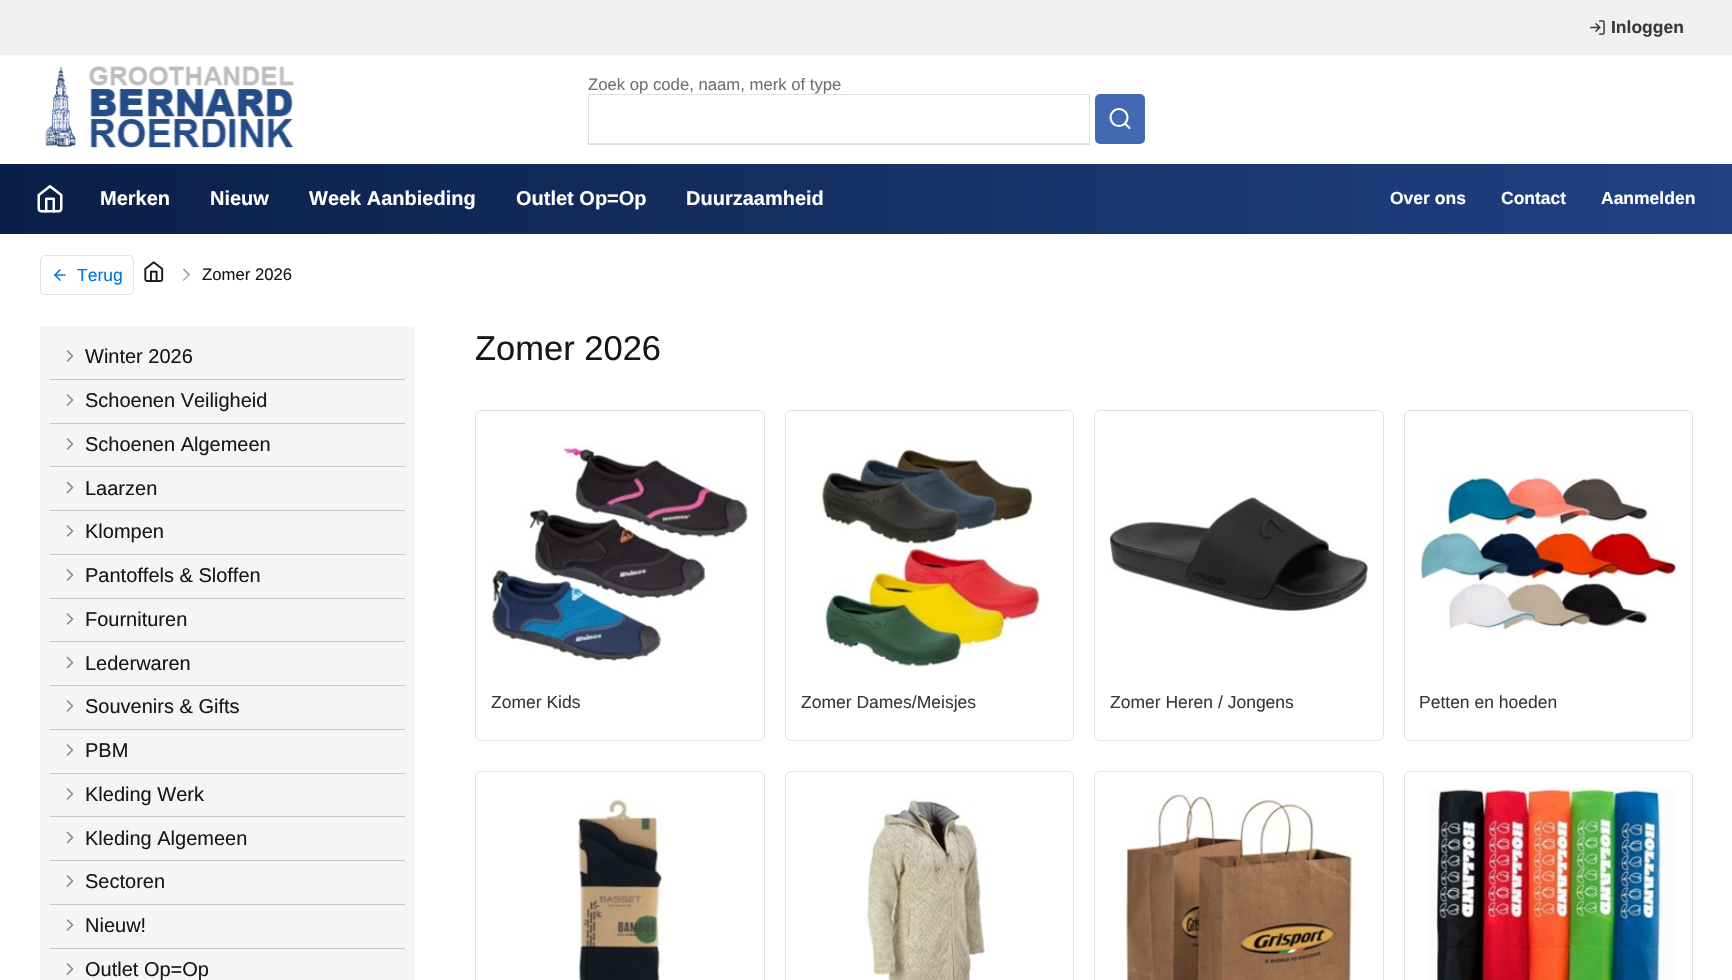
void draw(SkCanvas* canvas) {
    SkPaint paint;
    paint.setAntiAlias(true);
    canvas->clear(0xFFFFFFFF);
    paint.setColor(0xFFF0F0F0);
    canvas->drawRect(SkRect::MakeXYWH(0, 0, 1732, 55), paint);
    canvas->drawImageRect(SkImages::DeferredFromEncodedData(SkData::MakeFromFileName("img1.png")), SkRect::MakeXYWH(1590, 20, 15, 15), SkSamplingOptions());
    SkFont font1(fontMgr->matchFamilyStyle("Liberation Sans", SkFontStyle::Bold()), 17.5f);
    font1.setSubpixel(true);
    paint.setColor(0xFF383838);
    canvas->drawString("Inloggen", 1611, 33, font1, paint);
    canvas->drawImageRect(SkImages::DeferredFromEncodedData(SkData::MakeFromFileName("img2.png")), SkRect::MakeXYWH(45, 66, 249, 82), SkSamplingOptions());
    SkFont font2(fontMgr->matchFamilyStyle("Liberation Sans", SkFontStyle::Normal()), 16.7f);
    font2.setSubpixel(true);
    paint.setColor(0xFF707070);
    canvas->drawString("Zoek op code, naam, merk of type", 588, 90, font2, paint);
    paint.setStyle(SkPaint::kStroke_Style);
    paint.setStrokeWidth(1);
    paint.setColor(0xFFE0E0E0);
    canvas->drawRect(SkRect::MakeXYWH(588.5f, 94.5f, 501, 49), paint);
    paint.setStyle(SkPaint::kFill_Style);
    paint.setColor(0xFF426AB3);
    canvas->drawRoundRect(SkRect::MakeXYWH(1095, 94, 50, 50), 5, 5, paint);
    paint.setStyle(SkPaint::kStroke_Style);
    paint.setStrokeWidth(2.1f);
    paint.setColor(0xFFFFFFFF);
    canvas->drawCircle(1119, 117.5f, 8.5f, paint);
    paint.setStrokeCap(SkPaint::kRound_Cap);
    paint.setStrokeJoin(SkPaint::kRound_Join);
    canvas->drawPath(SkPathBuilder().moveTo(1129.5f, 128).lineTo(1125, 123.5f).detach(), paint);
    paint.setStyle(SkPaint::kFill_Style);
    paint.setColor(0xFFDADADA);
    canvas->drawRect(SkRect::MakeXYWH(588, 144, 502, 1), paint);
    {
        const SkColor colors[] = {0xFF0A1F47, 0xFF214183};
        const float stops[] = {0, 1};
        const SkPoint ends[] = {{0, 199}, {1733, 199}};
        paint.setShader(SkGradientShader::MakeLinear(ends, colors, stops, 2, SkTileMode::kClamp));
        paint.setAlpha(255);
    }
    canvas->drawRect(SkRect::MakeXYWH(0, 164, 1732, 70), paint);
    canvas->drawImageRect(SkImages::DeferredFromEncodedData(SkData::MakeFromFileName("img3.png")), SkRect::MakeXYWH(37, 185, 26, 28), SkSamplingOptions());
    SkFont font3(fontMgr->matchFamilyStyle("Liberation Sans", SkFontStyle::Bold()), 20);
    font3.setSubpixel(true);
    paint.setShader(nullptr);
    paint.setColor(0xFFFFFFFF);
    canvas->drawString("Merken", 100, 205, font3, paint);
    canvas->drawString("Nieuw", 210, 205, font3, paint);
    canvas->drawString("Week Aanbieding", 309, 205, font3, paint);
    canvas->drawString("Outlet Op=Op", 516, 205, font3, paint);
    canvas->drawString("Duurzaamheid", 686, 205, font3, paint);
    canvas->drawString("Over ons", 1390, 204, font1, paint);
    canvas->drawString("Contact", 1501, 204, font1, paint);
    canvas->drawString("Aanmelden", 1601, 204, font1, paint);
    paint.setStyle(SkPaint::kStroke_Style);
    paint.setStrokeWidth(1);
    paint.setStrokeCap(SkPaint::kButt_Cap);
    paint.setStrokeJoin(SkPaint::kMiter_Join);
    paint.setColor(0xFFE0E0E0);
    canvas->drawRoundRect(SkRect::MakeXYWH(40.5f, 255.5f, 93, 39), 4.5f, 4.5f, paint);
    canvas->drawImageRect(SkImages::DeferredFromEncodedData(SkData::MakeFromFileName("img4.png")), SkRect::MakeXYWH(54, 269, 12, 12), SkSamplingOptions());
    SkFont font4(fontMgr->matchFamilyStyle("Liberation Sans", SkFontStyle::Normal()), 17.5f);
    font4.setSubpixel(true);
    paint.setStyle(SkPaint::kFill_Style);
    paint.setColor(0xFF0074E0);
    canvas->drawString("Terug", 77, 281, font4, paint);
    canvas->drawImageRect(SkImages::DeferredFromEncodedData(SkData::MakeFromFileName("img5.png")), SkRect::MakeXYWH(144, 261, 20, 21), SkSamplingOptions());
    paint.setColor(0xFF8C8C8C);
    canvas->drawPath(SkPathBuilder().moveTo(184, 268.5f).lineTo(190, 274.5f).lineTo(189, 275.5f).lineTo(183, 269.5f).close().detach(), paint);
    canvas->drawPath(SkPathBuilder().moveTo(189, 274).lineTo(190, 274.5f).lineTo(183.5f, 281).lineTo(183, 280).close().detach(), paint);
    paint.setColor(0xFF171717);
    canvas->drawString("Zomer 2026", 202, 280, font2, paint);
    paint.setColor(0xFFF5F5F5);
    canvas->drawRect(SkRect::MakeXYWH(40, 326, 375, 654), paint);
    paint.setColor(0xFFC7C7C7);
    canvas->drawRect(SkRect::MakeXYWH(50, 379, 355, 1), paint);
    paint.setStyle(SkPaint::kStroke_Style);
    paint.setStrokeWidth(1.7f);
    paint.setStrokeCap(SkPaint::kRound_Cap);
    paint.setStrokeJoin(SkPaint::kRound_Join);
    paint.setColor(0xFF8C8C8C);
    canvas->drawPath(SkPathBuilder().moveTo(67.5f, 361).lineTo(72.5f, 356).lineTo(67.5f, 351).moveTo(67.5f, 405).lineTo(72.5f, 400).lineTo(67.5f, 395).detach(), paint);
    SkFont font5(fontMgr->matchFamilyStyle("Liberation Sans", SkFontStyle::Normal()), 20);
    font5.setSubpixel(true);
    paint.setStyle(SkPaint::kFill_Style);
    paint.setColor(0xFF171717);
    canvas->drawString("Winter 2026", 85, 363, font5, paint);
    canvas->drawString("Schoenen Veiligheid", 85, 407, font5, paint);
    paint.setColor(0xFFC7C7C7);
    canvas->drawRect(SkRect::MakeXYWH(50, 423, 355, 1), paint);
    canvas->drawRect(SkRect::MakeXYWH(50, 466, 355, 1), paint);
    paint.setStyle(SkPaint::kStroke_Style);
    paint.setColor(0xFF8C8C8C);
    canvas->drawPath(SkPathBuilder().moveTo(67.5f, 449).lineTo(72.5f, 444).lineTo(67.5f, 439).moveTo(67.5f, 492.5f).lineTo(72.5f, 487.5f).lineTo(67.5f, 482.5f).detach(), paint);
    paint.setStyle(SkPaint::kFill_Style);
    paint.setColor(0xFF171717);
    canvas->drawString("Schoenen Algemeen", 85, 451, font5, paint);
    canvas->drawString("Laarzen", 85, 495, font5, paint);
    paint.setColor(0xFFC7C7C7);
    canvas->drawRect(SkRect::MakeXYWH(50, 510, 355, 1), paint);
    canvas->drawRect(SkRect::MakeXYWH(50, 554, 355, 1), paint);
    paint.setStyle(SkPaint::kStroke_Style);
    paint.setColor(0xFF8C8C8C);
    canvas->drawPath(SkPathBuilder().moveTo(67.5f, 536).lineTo(72.5f, 531).lineTo(67.5f, 526).moveTo(67.5f, 580).lineTo(72.5f, 575).lineTo(67.5f, 570).detach(), paint);
    paint.setStyle(SkPaint::kFill_Style);
    paint.setColor(0xFF171717);
    canvas->drawString("Klompen", 85, 538, font5, paint);
    canvas->drawString("Pantoffels & Sloffen", 85, 582, font5, paint);
    paint.setColor(0xFFC7C7C7);
    canvas->drawRect(SkRect::MakeXYWH(50, 598, 355, 1), paint);
    canvas->drawRect(SkRect::MakeXYWH(50, 641, 355, 1), paint);
    paint.setStyle(SkPaint::kStroke_Style);
    paint.setColor(0xFF8C8C8C);
    canvas->drawPath(SkPathBuilder().moveTo(67.5f, 624).lineTo(72.5f, 619).lineTo(67.5f, 614).moveTo(67.5f, 667.5f).lineTo(72.5f, 662.5f).lineTo(67.5f, 657.5f).detach(), paint);
    paint.setStyle(SkPaint::kFill_Style);
    paint.setColor(0xFF171717);
    canvas->drawString("Fournituren", 85, 626, font5, paint);
    canvas->drawString("Lederwaren", 85, 670, font5, paint);
    paint.setColor(0xFFC7C7C7);
    canvas->drawRect(SkRect::MakeXYWH(50, 685, 355, 1), paint);
    canvas->drawRect(SkRect::MakeXYWH(50, 729, 355, 1), paint);
    paint.setStyle(SkPaint::kStroke_Style);
    paint.setColor(0xFF8C8C8C);
    canvas->drawPath(SkPathBuilder().moveTo(67.5f, 711).lineTo(72.5f, 706).lineTo(67.5f, 701).moveTo(67.5f, 755).lineTo(72.5f, 750).lineTo(67.5f, 745).detach(), paint);
    paint.setStyle(SkPaint::kFill_Style);
    paint.setColor(0xFF171717);
    canvas->drawString("Souvenirs & Gifts", 85, 713, font5, paint);
    canvas->drawString("PBM", 85, 757, font5, paint);
    paint.setColor(0xFFC7C7C7);
    canvas->drawRect(SkRect::MakeXYWH(50, 773, 355, 1), paint);
    canvas->drawRect(SkRect::MakeXYWH(50, 816, 355, 1), paint);
    paint.setStyle(SkPaint::kStroke_Style);
    paint.setColor(0xFF8C8C8C);
    canvas->drawPath(SkPathBuilder().moveTo(67.5f, 799).lineTo(72.5f, 794).lineTo(67.5f, 789).moveTo(67.5f, 842.5f).lineTo(72.5f, 837.5f).lineTo(67.5f, 832.5f).detach(), paint);
    paint.setStyle(SkPaint::kFill_Style);
    paint.setColor(0xFF171717);
    canvas->drawString("Kleding Werk", 85, 801, font5, paint);
    canvas->drawString("Kleding Algemeen", 85, 845, font5, paint);
    paint.setColor(0xFFC7C7C7);
    canvas->drawRect(SkRect::MakeXYWH(50, 860, 355, 1), paint);
    canvas->drawRect(SkRect::MakeXYWH(50, 904, 355, 1), paint);
    paint.setStyle(SkPaint::kStroke_Style);
    paint.setColor(0xFF8C8C8C);
    canvas->drawPath(SkPathBuilder().moveTo(67.5f, 886).lineTo(72.5f, 881).lineTo(67.5f, 876).moveTo(67.5f, 930).lineTo(72.5f, 925).lineTo(67.5f, 920).detach(), paint);
    paint.setStyle(SkPaint::kFill_Style);
    paint.setColor(0xFF171717);
    canvas->drawString("Sectoren", 85, 888, font5, paint);
    canvas->drawString("Nieuw!", 85, 932, font5, paint);
    paint.setColor(0xFFC7C7C7);
    canvas->drawRect(SkRect::MakeXYWH(50, 948, 355, 1), paint);
    paint.setStyle(SkPaint::kStroke_Style);
    paint.setColor(0xFF8C8C8C);
    canvas->drawPath(SkPathBuilder().moveTo(67.5f, 974).lineTo(72.5f, 969).lineTo(67.5f, 964).detach(), paint);
    paint.setStyle(SkPaint::kFill_Style);
    paint.setColor(0xFF171717);
    canvas->drawString("Outlet Op=Op", 85, 976, font5, paint);
    SkFont font6(fontMgr->matchFamilyStyle("Liberation Sans", SkFontStyle::Normal()), 34.5f);
    font6.setSubpixel(true);
    canvas->drawString("Zomer 2026", 475, 360, font6, paint);
    paint.setStyle(SkPaint::kStroke_Style);
    paint.setStrokeWidth(1);
    paint.setStrokeCap(SkPaint::kButt_Cap);
    paint.setStrokeJoin(SkPaint::kMiter_Join);
    paint.setColor(0xFFE0E0E0);
    canvas->drawRoundRect(SkRect::MakeXYWH(475.5f, 410.5f, 289, 330), 5.5f, 5.5f, paint);
    canvas->drawImageRect(SkImages::DeferredFromEncodedData(SkData::MakeFromFileName("img6.png")), SkRect::MakeXYWH(491, 443, 258, 222), SkSamplingOptions());
    paint.setStyle(SkPaint::kFill_Style);
    paint.setColor(0xFF383838);
    canvas->drawString("Zomer Kids", 491, 708, font4, paint);
    paint.setStyle(SkPaint::kStroke_Style);
    paint.setColor(0xFFE0E0E0);
    canvas->drawRoundRect(SkRect::MakeXYWH(785.5f, 410.5f, 288, 330), 5.5f, 5.5f, paint);
    canvas->drawImageRect(SkImages::DeferredFromEncodedData(SkData::MakeFromFileName("img7.png")), SkRect::MakeXYWH(819, 444, 222, 223), SkSamplingOptions());
    paint.setStyle(SkPaint::kFill_Style);
    paint.setColor(0xFF383838);
    canvas->drawString("Zomer Dames/Meisjes", 801, 708, font4, paint);
    paint.setStyle(SkPaint::kStroke_Style);
    paint.setColor(0xFFE0E0E0);
    canvas->drawRoundRect(SkRect::MakeXYWH(1094.5f, 410.5f, 289, 330), 5.5f, 5.5f, paint);
    canvas->drawImageRect(SkImages::DeferredFromEncodedData(SkData::MakeFromFileName("img8.png")), SkRect::MakeXYWH(1110, 497, 258, 116), SkSamplingOptions());
    paint.setStyle(SkPaint::kFill_Style);
    paint.setColor(0xFF383838);
    canvas->drawString("Zomer Heren / Jongens", 1110, 708, font4, paint);
    paint.setStyle(SkPaint::kStroke_Style);
    paint.setColor(0xFFE0E0E0);
    canvas->drawRoundRect(SkRect::MakeXYWH(1404.5f, 410.5f, 288, 330), 5.5f, 5.5f, paint);
    canvas->drawImageRect(SkImages::DeferredFromEncodedData(SkData::MakeFromFileName("img9.png")), SkRect::MakeXYWH(1420, 476, 257, 155), SkSamplingOptions());
    paint.setStyle(SkPaint::kFill_Style);
    paint.setColor(0xFF383838);
    canvas->drawString("Petten en hoeden", 1419, 708, font4, paint);
    paint.setStyle(SkPaint::kStroke_Style);
    paint.setColor(0xFFE0E0E0);
    canvas->drawRoundRect(SkRect::MakeXYWH(475.5f, 771.5f, 289, 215), 5.5f, 5.5f, paint);
    canvas->drawImageRect(SkImages::DeferredFromEncodedData(SkData::MakeFromFileName("img10.png")), SkRect::MakeXYWH(577, 796, 86, 184), SkSamplingOptions());
    canvas->drawRoundRect(SkRect::MakeXYWH(785.5f, 771.5f, 288, 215), 5.5f, 5.5f, paint);
    canvas->drawImageRect(SkImages::DeferredFromEncodedData(SkData::MakeFromFileName("img11.png")), SkRect::MakeXYWH(865, 796, 124, 184), SkSamplingOptions());
    canvas->drawRoundRect(SkRect::MakeXYWH(1094.5f, 771.5f, 289, 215), 5.5f, 5.5f, paint);
    canvas->drawImageRect(SkImages::DeferredFromEncodedData(SkData::MakeFromFileName("img12.png")), SkRect::MakeXYWH(1125, 792, 233, 188), SkSamplingOptions());
    canvas->drawRoundRect(SkRect::MakeXYWH(1404.5f, 771.5f, 288, 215), 5.5f, 5.5f, paint);
    canvas->drawImageRect(SkImages::DeferredFromEncodedData(SkData::MakeFromFileName("img13.png")), SkRect::MakeXYWH(1429, 787, 247, 193), SkSamplingOptions());
}
